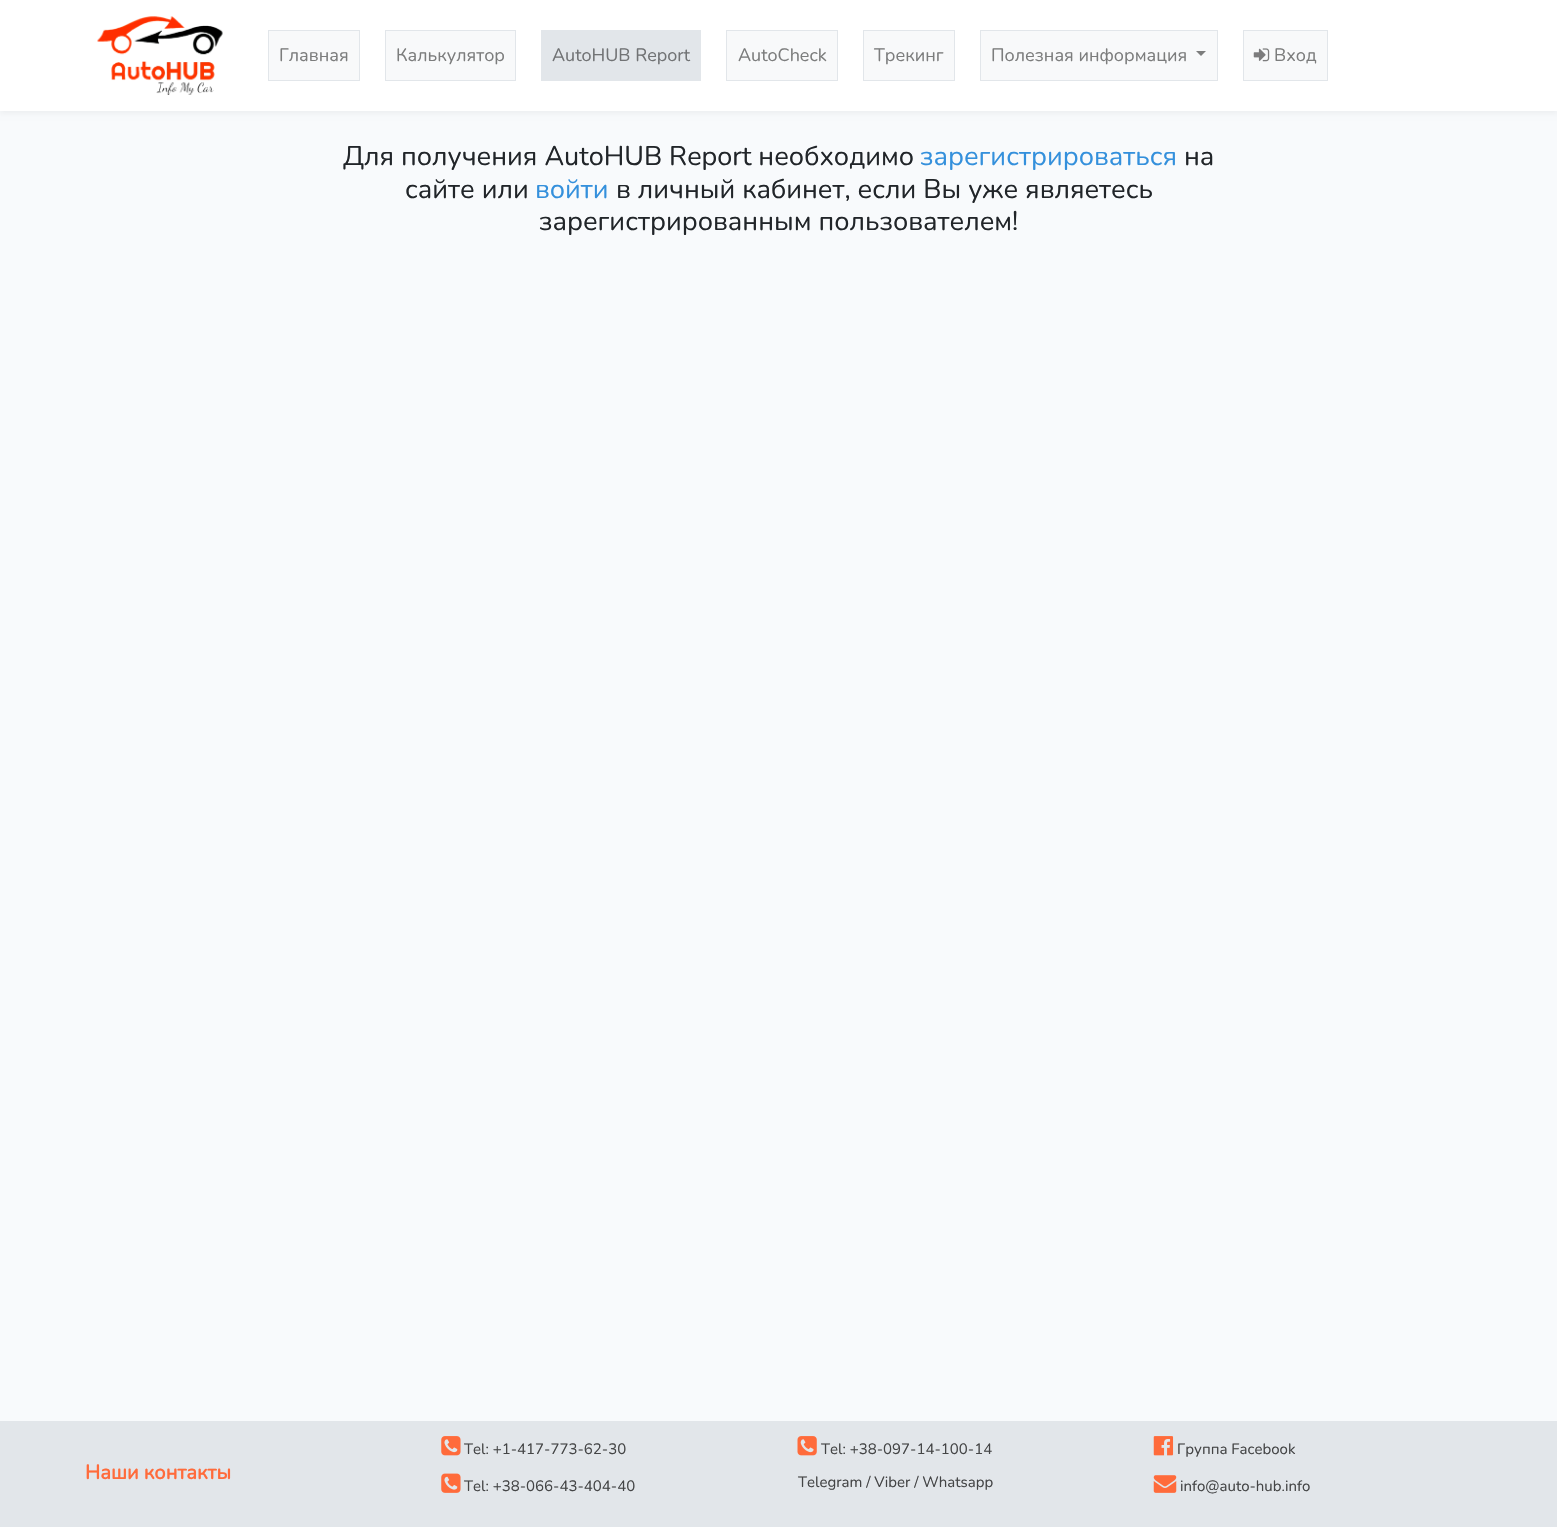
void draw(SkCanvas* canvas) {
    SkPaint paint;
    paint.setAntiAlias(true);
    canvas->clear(0xFFF8FAFC);
    paint.setColor(0x0A000000);
    paint.setMaskFilter(SkMaskFilter::MakeBlur(kNormal_SkBlurStyle, 2.5f));
    canvas->drawRect(SkRect::MakeXYWH(0, 3, 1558, 111), paint);
    paint.setMaskFilter(nullptr);
    paint.setColor(0xFFFFFFFF);
    canvas->drawRect(SkRect::MakeXYWH(0, 0, 1557, 111), paint);
    canvas->drawImageRect(SkImages::DeferredFromEncodedData(SkData::MakeFromFileName("img1.png")), SkRect::MakeXYWH(97, 16, 126, 79), SkSamplingOptions());
    paint.setColor(0xFFF8F9FA);
    canvas->drawRect(SkRect::MakeXYWH(268.5f, 30.5f, 91, 50), paint);
    paint.setStyle(SkPaint::kStroke_Style);
    paint.setStrokeWidth(1);
    paint.setColor(0xFFE2E6EA);
    canvas->drawRect(SkRect::MakeXYWH(268.5f, 30.5f, 91, 50), paint);
    SkFont font1(fontMgr->matchFamilyStyle("Nunito", SkFontStyle(200, SkFontStyle::kNormal_Width, SkFontStyle::kUpright_Slant)), 18);
    font1.setSubpixel(true);
    paint.setStyle(SkPaint::kFill_Style);
    paint.setColor(0xFF7C7D7D);
    canvas->drawString("Главная", 279, 61, font1, paint);
    paint.setColor(0xFFF8F9FA);
    canvas->drawRect(SkRect::MakeXYWH(385.5f, 30.5f, 130, 50), paint);
    paint.setStyle(SkPaint::kStroke_Style);
    paint.setColor(0xFFE2E6EA);
    canvas->drawRect(SkRect::MakeXYWH(385.5f, 30.5f, 130, 50), paint);
    paint.setStyle(SkPaint::kFill_Style);
    paint.setColor(0xFF7C7D7D);
    canvas->drawString("Калькулятор", 396, 61, font1, paint);
    paint.setColor(0xFFE2E6EA);
    canvas->drawRect(SkRect::MakeXYWH(541, 30, 160, 51), paint);
    paint.setColor(0xFF717375);
    canvas->drawString("AutoHUB Report", 552, 61, font1, paint);
    paint.setColor(0xFFF8F9FA);
    canvas->drawRect(SkRect::MakeXYWH(726.5f, 30.5f, 111, 50), paint);
    paint.setStyle(SkPaint::kStroke_Style);
    paint.setColor(0xFFE2E6EA);
    canvas->drawRect(SkRect::MakeXYWH(726.5f, 30.5f, 111, 50), paint);
    paint.setStyle(SkPaint::kFill_Style);
    paint.setColor(0xFF7C7D7D);
    canvas->drawString("AutoCheck", 738, 61, font1, paint);
    paint.setColor(0xFFF8F9FA);
    canvas->drawRect(SkRect::MakeXYWH(863.5f, 30.5f, 91, 50), paint);
    paint.setStyle(SkPaint::kStroke_Style);
    paint.setColor(0xFFE2E6EA);
    canvas->drawRect(SkRect::MakeXYWH(863.5f, 30.5f, 91, 50), paint);
    paint.setStyle(SkPaint::kFill_Style);
    paint.setColor(0xFF7C7D7D);
    canvas->drawString("Трекинг", 874, 61, font1, paint);
    paint.setColor(0xFFF8F9FA);
    canvas->drawRect(SkRect::MakeXYWH(980.5f, 30.5f, 237, 50), paint);
    paint.setStyle(SkPaint::kStroke_Style);
    paint.setColor(0xFFE2E6EA);
    canvas->drawRect(SkRect::MakeXYWH(980.5f, 30.5f, 237, 50), paint);
    paint.setStyle(SkPaint::kFill_Style);
    paint.setColor(0xFF7C7D7D);
    canvas->drawString("Полезная информация", 991, 61, font1, paint);
    canvas->drawPath(SkPathBuilder().moveTo(1196, 51).lineTo(1206, 51).lineTo(1201, 56).close().detach(), paint);
    paint.setColor(0xFFF8F9FA);
    canvas->drawRect(SkRect::MakeXYWH(1243.5f, 30.5f, 84, 50), paint);
    paint.setStyle(SkPaint::kStroke_Style);
    paint.setColor(0xFFE2E6EA);
    canvas->drawRect(SkRect::MakeXYWH(1243.5f, 30.5f, 84, 50), paint);
    canvas->drawImageRect(SkImages::DeferredFromEncodedData(SkData::MakeFromFileName("img2.png")), SkRect::MakeXYWH(1253, 48, 17, 14), SkSamplingOptions());
    paint.setStyle(SkPaint::kFill_Style);
    paint.setColor(0xFF7C7D7D);
    canvas->drawString("Вход", 1274, 61, font1, paint);
    SkFont font2(fontMgr->matchFamilyStyle("Nunito", SkFontStyle(200, SkFontStyle::kNormal_Width, SkFontStyle::kUpright_Slant)), 27);
    font2.setSubpixel(true);
    paint.setColor(0xFF212529);
    canvas->drawString("Для получения AutoHUB Report необходимо", 343, 165, font2, paint);
    paint.setColor(0xFF3490DC);
    canvas->drawString("зарегистрироваться", 920, 165, font2, paint);
    paint.setColor(0xFF212529);
    canvas->drawString("на", 1184, 165, font2, paint);
    canvas->drawString("сайте или", 405, 198, font2, paint);
    paint.setColor(0xFF3490DC);
    canvas->drawString("войти", 535, 198, font2, paint);
    paint.setColor(0xFF212529);
    canvas->drawString("в личный кабинет, если Вы уже являетесь", 616, 198, font2, paint);
    canvas->drawString("зарегистрированным пользователем!", 539, 230, font2, paint);
    paint.setColor(0xFFE2E6EA);
    canvas->drawRect(SkRect::MakeXYWH(0, 1421, 1557, 106), paint);
    SkFont font3(fontMgr->matchFamilyStyle("Nunito", SkFontStyle::Bold()), 20);
    font3.setSubpixel(true);
    paint.setColor(0xFFFF6B3B);
    canvas->drawString("Наши контакты", 85, 1479, font3, paint);
    canvas->drawImageRect(SkImages::DeferredFromEncodedData(SkData::MakeFromFileName("img3.png")), SkRect::MakeXYWH(441, 1436, 20, 20), SkSamplingOptions());
    SkFont font4(fontMgr->matchFamilyStyle("Nunito", SkFontStyle(200, SkFontStyle::kNormal_Width, SkFontStyle::kUpright_Slant)), 15);
    font4.setSubpixel(true);
    paint.setColor(0xFF444546);
    canvas->drawString("Tel: +1-417-773-62-30", 464, 1454, font4, paint);
    canvas->drawImageRect(SkImages::DeferredFromEncodedData(SkData::MakeFromFileName("img4.png")), SkRect::MakeXYWH(441, 1473, 20, 20), SkSamplingOptions());
    canvas->drawString("Tel: +38-066-43-404-40", 464, 1491, font4, paint);
    canvas->drawImageRect(SkImages::DeferredFromEncodedData(SkData::MakeFromFileName("img5.png")), SkRect::MakeXYWH(797, 1436, 20, 20), SkSamplingOptions());
    canvas->drawString("Tel: +38-097-14-100-14", 821, 1454, font4, paint);
    canvas->drawString("Telegram / Viber / Whatsapp", 798, 1487, font4, paint);
    canvas->drawImageRect(SkImages::DeferredFromEncodedData(SkData::MakeFromFileName("img6.png")), SkRect::MakeXYWH(1153, 1436, 21, 20), SkSamplingOptions());
    canvas->drawString("Группа Facebook", 1177, 1454, font4, paint);
    canvas->drawImageRect(SkImages::DeferredFromEncodedData(SkData::MakeFromFileName("img7.png")), SkRect::MakeXYWH(1153, 1475, 24, 18), SkSamplingOptions());
    canvas->drawString("info@auto-hub.info", 1180, 1491, font4, paint);
}
